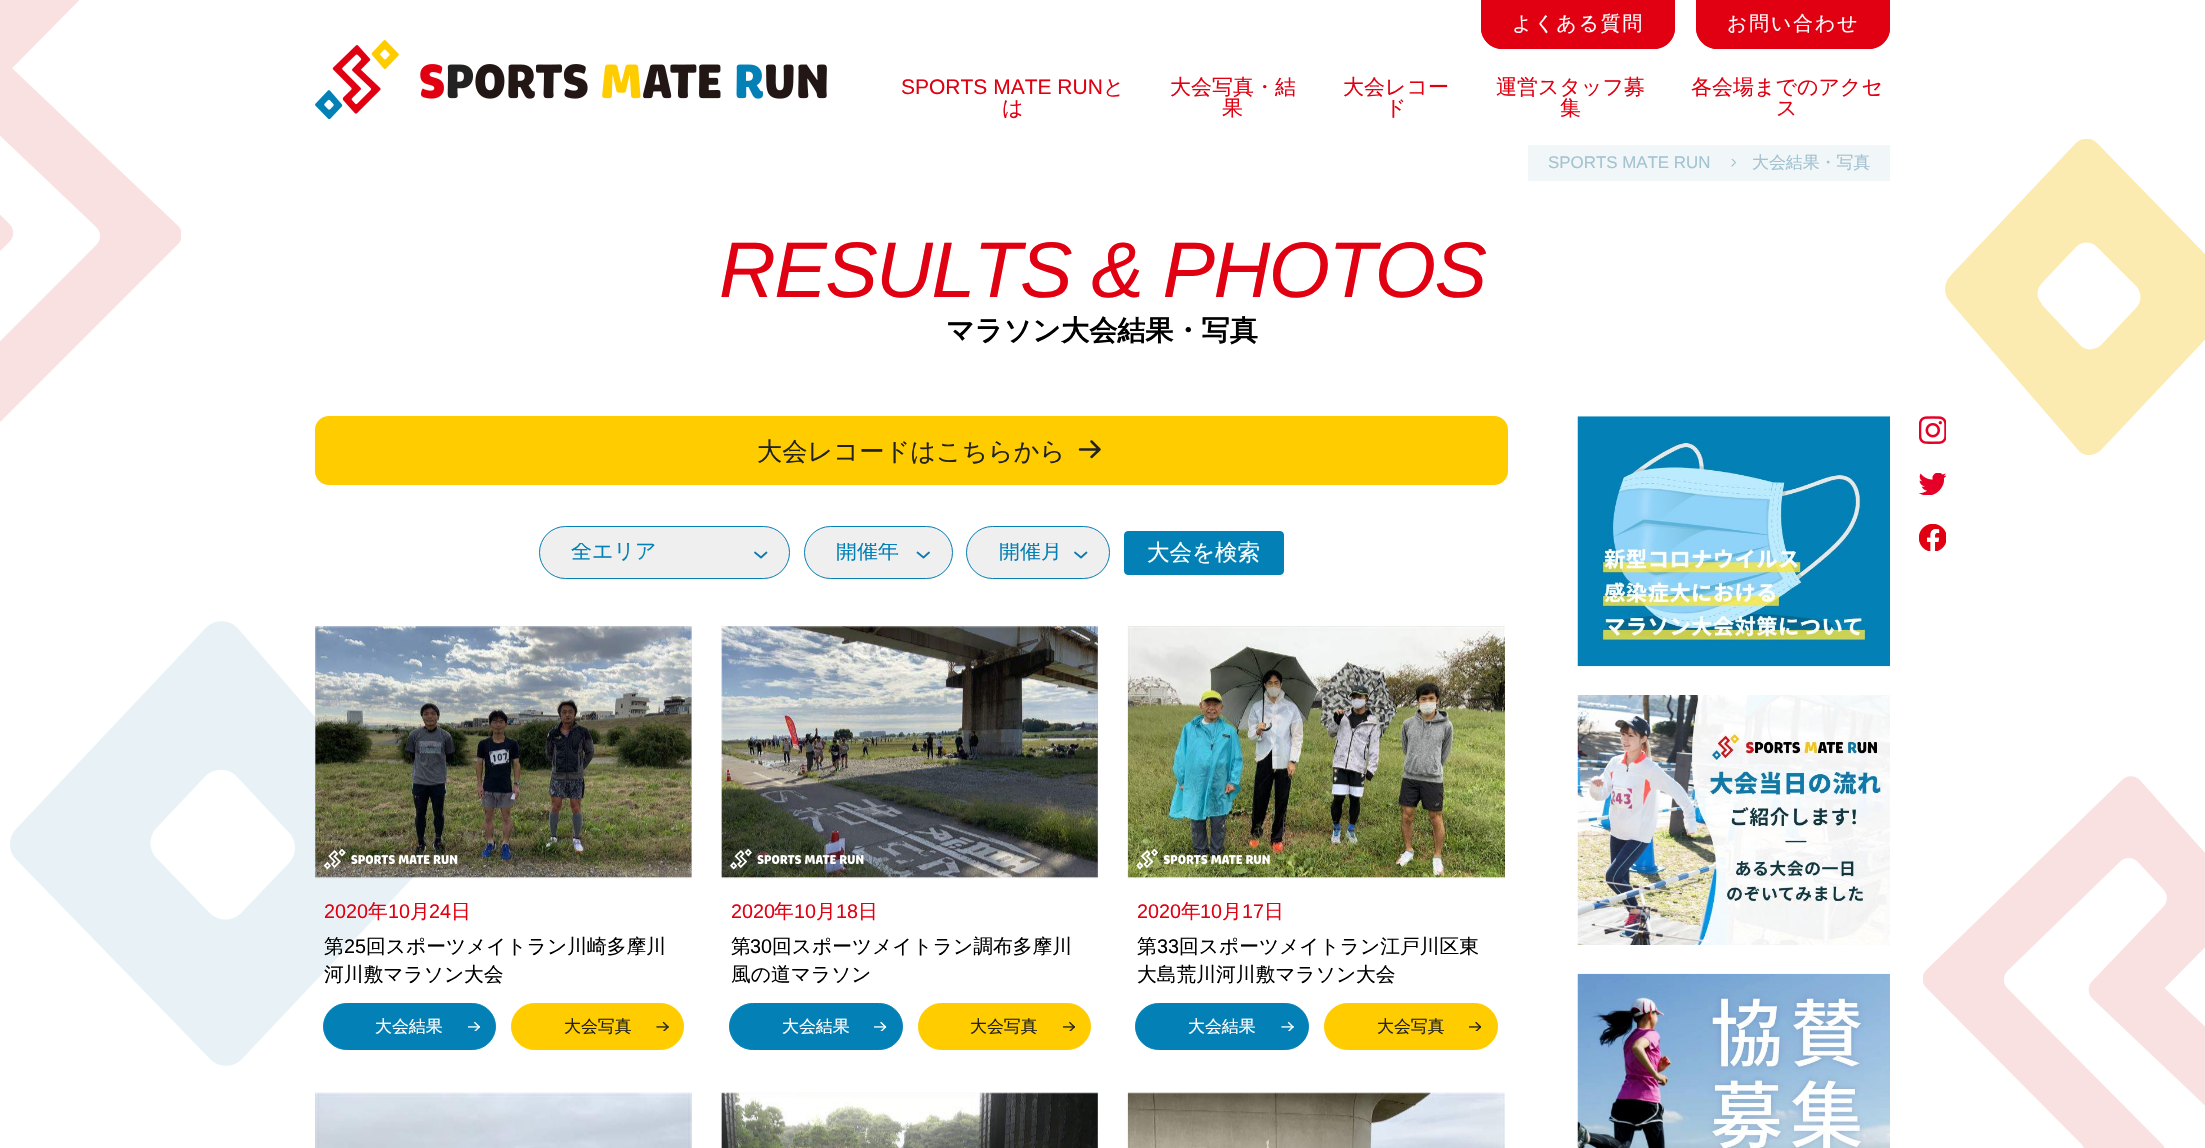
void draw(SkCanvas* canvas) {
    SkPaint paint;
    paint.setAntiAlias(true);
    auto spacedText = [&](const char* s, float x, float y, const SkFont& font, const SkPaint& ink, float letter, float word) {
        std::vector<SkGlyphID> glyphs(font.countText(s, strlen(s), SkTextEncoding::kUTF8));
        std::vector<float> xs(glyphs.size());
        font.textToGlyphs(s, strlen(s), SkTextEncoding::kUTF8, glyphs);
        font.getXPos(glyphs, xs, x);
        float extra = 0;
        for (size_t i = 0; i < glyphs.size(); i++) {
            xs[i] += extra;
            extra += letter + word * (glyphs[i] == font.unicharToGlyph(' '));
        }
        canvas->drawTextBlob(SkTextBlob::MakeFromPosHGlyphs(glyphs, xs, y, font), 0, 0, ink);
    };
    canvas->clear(0xFFFFFFFF);
    canvas->drawImageRect(SkImages::DeferredFromEncodedData(SkData::MakeFromFileName("img1.png")), SkRect::MakeXYWH(0, 0, 181, 422), SkSamplingOptions());
    canvas->save();
    canvas->clipRect(SkRect::MakeXYWH(1945, 139, 260, 316));
    paint.setColor(0xFFFCEBB0);
    canvas->drawPath(SkPathBuilder().moveTo(1952, 274).lineTo(2075, 144).cubicTo(2081, 137, 2091, 137, 2097, 143).lineTo(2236, 286).cubicTo(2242, 292, 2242, 301, 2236, 307).lineTo(2101, 450).cubicTo(2095, 456, 2085, 457, 2079, 451).lineTo(1951, 303).cubicTo(1943, 295, 1943, 283, 1951, 275).lineTo(1952, 274).moveTo(2042, 305).lineTo(2079, 344).cubicTo(2084, 351, 2094, 351, 2101, 345).lineTo(2136, 308).cubicTo(2142, 302, 2142, 292, 2136, 286).lineTo(2098, 248).cubicTo(2092, 241, 2082, 241, 2076, 247).lineTo(2042, 283).cubicTo(2036, 289, 2036, 298, 2042, 304).detach(), paint);
    canvas->restore();
    canvas->drawImageRect(SkImages::DeferredFromEncodedData(SkData::MakeFromFileName("img2.png")), SkRect::MakeXYWH(10, 621, 403, 445), SkSamplingOptions());
    canvas->drawImageRect(SkImages::DeferredFromEncodedData(SkData::MakeFromFileName("img3.png")), SkRect::MakeXYWH(1923, 776, 282, 372), SkSamplingOptions());
    canvas->drawImageRect(SkImages::DeferredFromEncodedData(SkData::MakeFromFileName("img4.png")), SkRect::MakeXYWH(315, 40, 512, 79), SkSamplingOptions());
    paint.setColor(0xFFE00012);
    canvas->drawPath(SkPathBuilder().moveTo(1481, 0).lineTo(1675, 0).lineTo(1675, 28).cubicTo(1675, 39.5f, 1665.5f, 49, 1654, 49).lineTo(1502, 49).cubicTo(1490.5f, 49, 1481, 39.5f, 1481, 28).close().detach(), paint);
    canvas->drawPath(SkPathBuilder(SkPathFillType::kEvenOdd).moveTo(1481, 0).lineTo(1675, 0).lineTo(1675, 28).cubicTo(1675, 39, 1666, 49, 1654, 49).lineTo(1502, 49).cubicTo(1491, 49, 1481, 39, 1481, 28).close().moveTo(1482, 0).lineTo(1674, 0).lineTo(1674, 28).cubicTo(1674, 39, 1665, 48, 1654, 48).lineTo(1502, 48).cubicTo(1491, 48, 1482, 39, 1482, 28).close().detach(), paint);
    SkFont font1(fontMgr->matchFamilyStyle("WenQuanYi Zen Hei", SkFontStyle(500, SkFontStyle::kNormal_Width, SkFontStyle::kUpright_Slant)), 19.75f);
    font1.setSubpixel(true);
    paint.setColor(0xFFFFFFFF);
    spacedText("よくある質問", 1512, 30, font1, paint, 2, 0);
    paint.setColor(0xFFE00012);
    canvas->drawPath(SkPathBuilder().moveTo(1696, 0).lineTo(1890, 0).lineTo(1890, 28).cubicTo(1890, 39.5f, 1880.5f, 49, 1869, 49).lineTo(1717, 49).cubicTo(1705.5f, 49, 1696, 39.5f, 1696, 28).close().detach(), paint);
    canvas->drawPath(SkPathBuilder(SkPathFillType::kEvenOdd).moveTo(1696, 0).lineTo(1890, 0).lineTo(1890, 28).cubicTo(1890, 39, 1881, 49, 1869, 49).lineTo(1717, 49).cubicTo(1706, 49, 1696, 39, 1696, 28).close().moveTo(1698, 0).lineTo(1889, 0).lineTo(1889, 28).cubicTo(1889, 39, 1880, 48, 1869, 48).lineTo(1717, 48).cubicTo(1706, 48, 1698, 39, 1698, 28).close().detach(), paint);
    paint.setColor(0xFFFFFFFF);
    spacedText("お問い合わせ", 1727, 30, font1, paint, 2, 0);
    SkFont font2(fontMgr->matchFamilyStyle("Liberation Sans", SkFontStyle::Normal()), 21);
    font2.setSubpixel(true);
    paint.setColor(0xFFE00012);
    canvas->drawString("SPORTS MATE RUN", 901, 94, font2, paint);
    SkFont font3(fontMgr->matchFamilyStyle("WenQuanYi Zen Hei", SkFontStyle(500, SkFontStyle::kNormal_Width, SkFontStyle::kUpright_Slant)), 21);
    font3.setSubpixel(true);
    canvas->drawString("と", 1103, 94, font3, paint);
    canvas->drawString("は", 1002, 115, font3, paint);
    canvas->drawString("大会写真・結", 1170, 94, font3, paint);
    canvas->drawString("果", 1222, 115, font3, paint);
    canvas->drawString("大会レコー", 1343, 94, font3, paint);
    canvas->drawString("ド", 1385, 115, font3, paint);
    canvas->drawString("運営スタッフ募", 1496, 94, font3, paint);
    canvas->drawString("集", 1560, 115, font3, paint);
    canvas->drawString("各会場までのアクセ", 1691, 94, font3, paint);
    canvas->drawString("ス", 1776, 115, font3, paint);
    paint.setColor(0xFFF1F6F8);
    canvas->drawRect(SkRect::MakeXYWH(1528, 145, 362, 36), paint);
    SkFont font4(fontMgr->matchFamilyStyle("Liberation Sans", SkFontStyle::Normal()), 16.9f);
    font4.setSubpixel(true);
    paint.setColor(0xFFA3C3D1);
    canvas->drawString("SPORTS MATE RUN", 1548, 168, font4, paint);
    canvas->save();
    canvas->clipRect(SkRect::MakeXYWH(1731, 159, 5, 9));
    paint.setStyle(SkPaint::kStroke_Style);
    paint.setStrokeWidth(1.1f);
    paint.setStrokeCap(SkPaint::kRound_Cap);
    canvas->drawPath(SkPathBuilder().moveTo(1732, 159).lineTo(1735.5f, 162.5f).lineTo(1732, 166).detach(), paint);
    canvas->restore();
    SkFont font5(fontMgr->matchFamilyStyle("WenQuanYi Zen Hei", SkFontStyle(500, SkFontStyle::kNormal_Width, SkFontStyle::kUpright_Slant)), 16.9f);
    font5.setSubpixel(true);
    paint.setStyle(SkPaint::kFill_Style);
    canvas->drawString("大会結果・写真", 1752, 168, font5, paint);
    SkFont font6(fontMgr->matchFamilyStyle("Liberation Sans", SkFontStyle::Italic()), 78.75f);
    font6.setSubpixel(true);
    paint.setColor(0xFFE00012);
    spacedText("RESULTS & PHOTOS", 719, 297, font6, paint, -1.6f, 0);
    SkFont font7(fontMgr->matchFamilyStyle("WenQuanYi Zen Hei", SkFontStyle::Bold()), 28.1f);
    font7.setSubpixel(true);
    paint.setColor(0xFF000000);
    canvas->drawString("マラソン大会結果・写真", 946, 340, font7, paint);
    paint.setColor(0xFFFFCC00);
    canvas->drawRoundRect(SkRect::MakeXYWH(316.5f, 417.5f, 1190, 66), 12.5f, 12.5f, paint);
    paint.setStyle(SkPaint::kStroke_Style);
    paint.setStrokeWidth(3);
    paint.setStrokeCap(SkPaint::kButt_Cap);
    canvas->drawRoundRect(SkRect::MakeXYWH(316.5f, 417.5f, 1190, 66), 12.5f, 12.5f, paint);
    SkFont font8(fontMgr->matchFamilyStyle("WenQuanYi Zen Hei", SkFontStyle(500, SkFontStyle::kNormal_Width, SkFontStyle::kUpright_Slant)), 25.25f);
    font8.setSubpixel(true);
    paint.setStyle(SkPaint::kFill_Style);
    paint.setColor(0xFF222222);
    canvas->drawString("大会レコードはこちらから", 757, 460, font8, paint);
    paint.setStyle(SkPaint::kStroke_Style);
    paint.setStrokeWidth(2.5f);
    paint.setStrokeCap(SkPaint::kRound_Cap);
    canvas->drawPath(SkPathBuilder().moveTo(1080, 449.5f).lineTo(1099.5f, 449.5f).moveTo(1091.5f, 441.5f).lineTo(1099.5f, 449.5f).moveTo(1091.5f, 457).lineTo(1099.5f, 449.5f).detach(), paint);
    paint.setStyle(SkPaint::kFill_Style);
    paint.setColor(0xFFEFEFEF);
    canvas->drawRoundRect(SkRect::MakeXYWH(539, 526, 251, 53), 26.5f, 26.5f, paint);
    paint.setStyle(SkPaint::kStroke_Style);
    paint.setStrokeWidth(1.8f);
    paint.setStrokeJoin(SkPaint::kRound_Join);
    paint.setColor(0xFF0F79AA);
    canvas->drawPath(SkPathBuilder().moveTo(755, 552.5f).lineTo(761, 557.5f).lineTo(766.5f, 552.5f).detach(), paint);
    paint.setStrokeWidth(1);
    paint.setStrokeCap(SkPaint::kButt_Cap);
    paint.setStrokeJoin(SkPaint::kMiter_Join);
    paint.setColor(0xFF0380B5);
    canvas->drawRoundRect(SkRect::MakeXYWH(539.5f, 526.5f, 250, 52), 26, 26, paint);
    canvas->save();
    canvas->clipRect(SkRect::MakeXYWH(571, 543, 172, 21));
    paint.setStyle(SkPaint::kFill_Style);
    canvas->drawString("全エリア", 571, 558, font3, paint);
    canvas->restore();
    paint.setColor(0xFFEFEFEF);
    canvas->drawRoundRect(SkRect::MakeXYWH(804, 526, 149, 53), 26.5f, 26.5f, paint);
    paint.setStyle(SkPaint::kStroke_Style);
    paint.setStrokeWidth(1.8f);
    paint.setStrokeCap(SkPaint::kRound_Cap);
    paint.setStrokeJoin(SkPaint::kRound_Join);
    paint.setColor(0xFF0F79AA);
    canvas->drawPath(SkPathBuilder().moveTo(917.5f, 552.5f).lineTo(923.5f, 557.5f).lineTo(929, 552.5f).detach(), paint);
    paint.setStrokeWidth(1);
    paint.setStrokeCap(SkPaint::kButt_Cap);
    paint.setStrokeJoin(SkPaint::kMiter_Join);
    paint.setColor(0xFF0380B5);
    canvas->drawRoundRect(SkRect::MakeXYWH(804.5f, 526.5f, 148, 52), 26, 26, paint);
    canvas->save();
    canvas->clipRect(SkRect::MakeXYWH(836, 543, 69, 21));
    paint.setStyle(SkPaint::kFill_Style);
    canvas->drawString("開催年", 836, 558, font3, paint);
    canvas->restore();
    paint.setColor(0xFFEFEFEF);
    canvas->drawRoundRect(SkRect::MakeXYWH(966, 526, 144, 53), 26.5f, 26.5f, paint);
    paint.setStyle(SkPaint::kStroke_Style);
    paint.setStrokeWidth(1.8f);
    paint.setStrokeCap(SkPaint::kRound_Cap);
    paint.setStrokeJoin(SkPaint::kRound_Join);
    paint.setColor(0xFF0F79AA);
    canvas->drawPath(SkPathBuilder().moveTo(1075, 552.5f).lineTo(1081, 557.5f).lineTo(1086.5f, 552.5f).detach(), paint);
    paint.setStrokeWidth(1);
    paint.setStrokeCap(SkPaint::kButt_Cap);
    paint.setStrokeJoin(SkPaint::kMiter_Join);
    paint.setColor(0xFF0380B5);
    canvas->drawRoundRect(SkRect::MakeXYWH(966.5f, 526.5f, 143, 52), 26, 26, paint);
    canvas->save();
    canvas->clipRect(SkRect::MakeXYWH(999, 543, 64, 21));
    paint.setStyle(SkPaint::kFill_Style);
    canvas->drawString("開催月", 999, 558, font3, paint);
    canvas->restore();
    canvas->drawRoundRect(SkRect::MakeXYWH(1124.5f, 531.5f, 159, 43), 3.5f, 3.5f, paint);
    paint.setStyle(SkPaint::kStroke_Style);
    canvas->drawRoundRect(SkRect::MakeXYWH(1124.5f, 531.5f, 159, 43), 3.5f, 3.5f, paint);
    SkFont font9(fontMgr->matchFamilyStyle("WenQuanYi Zen Hei", SkFontStyle(500, SkFontStyle::kNormal_Width, SkFontStyle::kUpright_Slant)), 22.5f);
    font9.setSubpixel(true);
    paint.setStyle(SkPaint::kFill_Style);
    paint.setColor(0xFFFFFFFF);
    canvas->drawString("大会を検索", 1147, 560, font9, paint);
    canvas->drawImageRect(SkImages::DeferredFromEncodedData(SkData::MakeFromFileName("img5.png")), SkRect::MakeXYWH(315, 626, 377, 253), SkSamplingOptions());
    canvas->drawImageRect(SkImages::DeferredFromEncodedData(SkData::MakeFromFileName("img6.png")), SkRect::MakeXYWH(324, 849, 134, 21), SkSamplingOptions());
    SkFont font10(fontMgr->matchFamilyStyle("Liberation Sans", SkFontStyle::Normal()), 19.75f);
    font10.setSubpixel(true);
    paint.setColor(0xFFE00012);
    canvas->drawString("2020", 324, 918, font10, paint);
    canvas->drawString("年", 368, 918, font1, paint);
    canvas->drawString("10", 388, 918, font10, paint);
    canvas->drawString("月", 410, 918, font1, paint);
    canvas->drawString("24", 429, 918, font10, paint);
    canvas->drawString("日", 451, 918, font1, paint);
    paint.setColor(0xFF000000);
    canvas->drawString("第", 324, 953, font1, paint);
    canvas->drawString("25", 344, 953, font10, paint);
    canvas->drawString("回スポーツメイトラン川崎多摩川", 366, 953, font1, paint);
    canvas->drawString("河川敷マラソン大会", 324, 981, font1, paint);
    paint.setColor(0xFF0380B5);
    canvas->drawRoundRect(SkRect::MakeXYWH(323.5f, 1003.5f, 172, 46), 23, 23, paint);
    paint.setStyle(SkPaint::kStroke_Style);
    canvas->drawRoundRect(SkRect::MakeXYWH(323.5f, 1003.5f, 172, 46), 23, 23, paint);
    paint.setStyle(SkPaint::kFill_Style);
    paint.setColor(0xFFFFFFFF);
    canvas->drawString("大会結果", 375, 1032, font5, paint);
    canvas->drawImageRect(SkImages::DeferredFromEncodedData(SkData::MakeFromFileName("img7.png")), SkRect::MakeXYWH(468, 1021, 12, 10), SkSamplingOptions());
    paint.setColor(0xFFFFCC00);
    canvas->drawRoundRect(SkRect::MakeXYWH(511.5f, 1003.5f, 172, 46), 23, 23, paint);
    paint.setStyle(SkPaint::kStroke_Style);
    canvas->drawRoundRect(SkRect::MakeXYWH(511.5f, 1003.5f, 172, 46), 23, 23, paint);
    paint.setStyle(SkPaint::kFill_Style);
    paint.setColor(0xFF222222);
    canvas->drawString("大会写真", 564, 1032, font5, paint);
    canvas->drawImageRect(SkImages::DeferredFromEncodedData(SkData::MakeFromFileName("img8.png")), SkRect::MakeXYWH(656, 1021, 13, 10), SkSamplingOptions());
    canvas->drawImageRect(SkImages::DeferredFromEncodedData(SkData::MakeFromFileName("img9.png")), SkRect::MakeXYWH(721, 626, 377, 253), SkSamplingOptions());
    canvas->drawImageRect(SkImages::DeferredFromEncodedData(SkData::MakeFromFileName("img10.png")), SkRect::MakeXYWH(730, 849, 134, 21), SkSamplingOptions());
    paint.setColor(0xFFE00012);
    canvas->drawString("2020", 731, 918, font10, paint);
    canvas->drawString("年", 774, 918, font1, paint);
    canvas->drawString("10", 794, 918, font10, paint);
    canvas->drawString("月", 816, 918, font1, paint);
    canvas->drawString("18", 836, 918, font10, paint);
    canvas->drawString("日", 858, 918, font1, paint);
    paint.setColor(0xFF000000);
    canvas->drawString("第", 731, 953, font1, paint);
    canvas->drawString("30", 750, 953, font10, paint);
    canvas->drawString("回スポーツメイトラン調布多摩川", 772, 953, font1, paint);
    canvas->drawString("風の道マラソン", 731, 981, font1, paint);
    paint.setColor(0xFF0380B5);
    canvas->drawRoundRect(SkRect::MakeXYWH(729.5f, 1003.5f, 173, 46), 23, 23, paint);
    paint.setStyle(SkPaint::kStroke_Style);
    canvas->drawRoundRect(SkRect::MakeXYWH(729.5f, 1003.5f, 173, 46), 23, 23, paint);
    paint.setStyle(SkPaint::kFill_Style);
    paint.setColor(0xFFFFFFFF);
    canvas->drawString("大会結果", 782, 1032, font5, paint);
    canvas->drawImageRect(SkImages::DeferredFromEncodedData(SkData::MakeFromFileName("img11.png")), SkRect::MakeXYWH(874, 1021, 13, 10), SkSamplingOptions());
    paint.setColor(0xFFFFCC00);
    canvas->drawRoundRect(SkRect::MakeXYWH(918.5f, 1003.5f, 172, 46), 23, 23, paint);
    paint.setStyle(SkPaint::kStroke_Style);
    canvas->drawRoundRect(SkRect::MakeXYWH(918.5f, 1003.5f, 172, 46), 23, 23, paint);
    paint.setStyle(SkPaint::kFill_Style);
    paint.setColor(0xFF222222);
    canvas->drawString("大会写真", 970, 1032, font5, paint);
    canvas->drawImageRect(SkImages::DeferredFromEncodedData(SkData::MakeFromFileName("img12.png")), SkRect::MakeXYWH(1063, 1021, 12, 10), SkSamplingOptions());
    canvas->drawImageRect(SkImages::DeferredFromEncodedData(SkData::MakeFromFileName("img13.png")), SkRect::MakeXYWH(1127, 626, 378, 253), SkSamplingOptions());
    canvas->drawImageRect(SkImages::DeferredFromEncodedData(SkData::MakeFromFileName("img14.png")), SkRect::MakeXYWH(1136, 849, 134, 21), SkSamplingOptions());
    paint.setColor(0xFFE00012);
    canvas->drawString("2020", 1137, 918, font10, paint);
    canvas->drawString("年", 1181, 918, font1, paint);
    canvas->drawString("10", 1200, 918, font10, paint);
    canvas->drawString("月", 1222, 918, font1, paint);
    canvas->drawString("17", 1242, 918, font10, paint);
    canvas->drawString("日", 1264, 918, font1, paint);
    paint.setColor(0xFF000000);
    canvas->drawString("第", 1137, 953, font1, paint);
    canvas->drawString("33", 1157, 953, font10, paint);
    canvas->drawString("回スポーツメイトラン江戸川区東", 1179, 953, font1, paint);
    canvas->drawString("大島荒川河川敷マラソン大会", 1137, 981, font1, paint);
    paint.setColor(0xFF0380B5);
    canvas->drawRoundRect(SkRect::MakeXYWH(1135.5f, 1003.5f, 173, 46), 23, 23, paint);
    paint.setStyle(SkPaint::kStroke_Style);
    canvas->drawRoundRect(SkRect::MakeXYWH(1135.5f, 1003.5f, 173, 46), 23, 23, paint);
    paint.setStyle(SkPaint::kFill_Style);
    paint.setColor(0xFFFFFFFF);
    canvas->drawString("大会結果", 1188, 1032, font5, paint);
    canvas->drawImageRect(SkImages::DeferredFromEncodedData(SkData::MakeFromFileName("img15.png")), SkRect::MakeXYWH(1281, 1021, 13, 10), SkSamplingOptions());
    paint.setColor(0xFFFFCC00);
    canvas->drawRoundRect(SkRect::MakeXYWH(1324.5f, 1003.5f, 173, 46), 23, 23, paint);
    paint.setStyle(SkPaint::kStroke_Style);
    canvas->drawRoundRect(SkRect::MakeXYWH(1324.5f, 1003.5f, 173, 46), 23, 23, paint);
    paint.setStyle(SkPaint::kFill_Style);
    paint.setColor(0xFF222222);
    canvas->drawString("大会写真", 1377, 1032, font5, paint);
    canvas->drawImageRect(SkImages::DeferredFromEncodedData(SkData::MakeFromFileName("img16.png")), SkRect::MakeXYWH(1469, 1021, 12, 10), SkSamplingOptions());
    canvas->drawImageRect(SkImages::DeferredFromEncodedData(SkData::MakeFromFileName("img17.png")), SkRect::MakeXYWH(315, 1092, 377, 56), SkSamplingOptions());
    canvas->drawImageRect(SkImages::DeferredFromEncodedData(SkData::MakeFromFileName("img18.png")), SkRect::MakeXYWH(721, 1092, 377, 56), SkSamplingOptions());
    canvas->drawImageRect(SkImages::DeferredFromEncodedData(SkData::MakeFromFileName("img19.png")), SkRect::MakeXYWH(1127, 1092, 378, 56), SkSamplingOptions());
    canvas->drawImageRect(SkImages::DeferredFromEncodedData(SkData::MakeFromFileName("img20.png")), SkRect::MakeXYWH(1577, 416, 313, 251), SkSamplingOptions());
    canvas->drawImageRect(SkImages::DeferredFromEncodedData(SkData::MakeFromFileName("img21.png")), SkRect::MakeXYWH(1577, 695, 313, 250), SkSamplingOptions());
    canvas->drawImageRect(SkImages::DeferredFromEncodedData(SkData::MakeFromFileName("img22.png")), SkRect::MakeXYWH(1577, 973, 313, 175), SkSamplingOptions());
    canvas->drawImageRect(SkImages::DeferredFromEncodedData(SkData::MakeFromFileName("img23.png")), SkRect::MakeXYWH(1919, 416, 27, 28), SkSamplingOptions());
    canvas->drawImageRect(SkImages::DeferredFromEncodedData(SkData::MakeFromFileName("img24.png")), SkRect::MakeXYWH(1919, 473, 27, 22), SkSamplingOptions());
    canvas->drawImageRect(SkImages::DeferredFromEncodedData(SkData::MakeFromFileName("img25.png")), SkRect::MakeXYWH(1919, 524, 27, 27), SkSamplingOptions());
}
